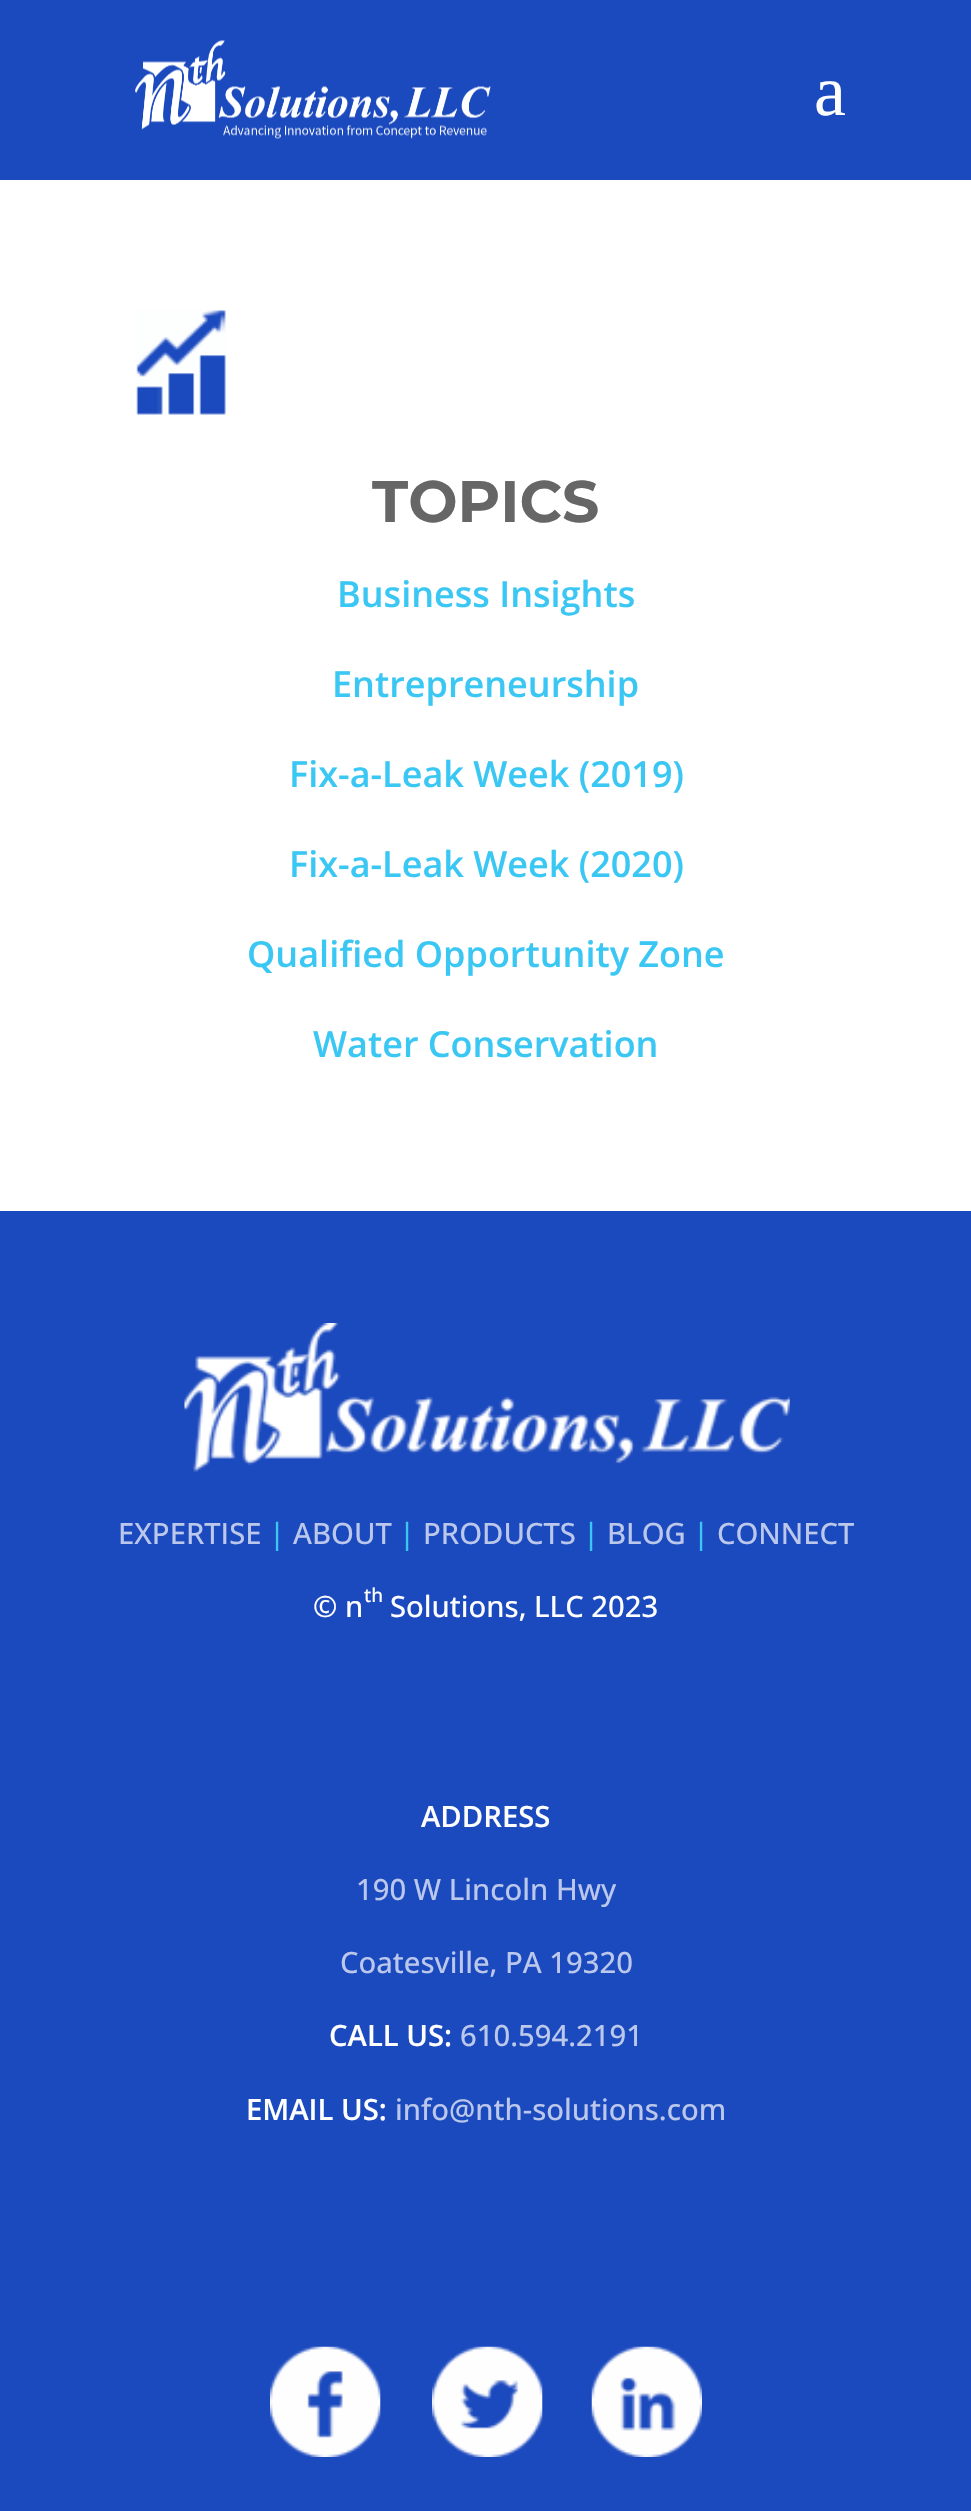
void draw(SkCanvas* canvas) {
    SkPaint paint;
    paint.setAntiAlias(true);
    canvas->clear(0xFF1B49BE);
    canvas->drawImageRect(SkImages::DeferredFromEncodedData(SkData::MakeFromFileName("img1.png")), SkRect::MakeXYWH(135, 40, 356, 99), SkSamplingOptions());
    SkFont font1(fontMgr->matchFamilyStyle("Liberation Serif", SkFontStyle::Normal()), 72);
    font1.setSubpixel(true);
    paint.setColor(0xFFFFFFFF);
    canvas->drawString("a", 814, 115, font1, paint);
    canvas->drawRect(SkRect::MakeXYWH(0, 180, 971, 1031), paint);
    canvas->drawImageRect(SkImages::DeferredFromEncodedData(SkData::MakeFromFileName("img2.png")), SkRect::MakeXYWH(136, 310, 90, 105), SkSamplingOptions());
    SkFont font2(fontMgr->matchFamilyStyle("Montserrat", SkFontStyle::Bold()), 58.5f);
    font2.setSubpixel(true);
    paint.setColor(0xFF666666);
    canvas->drawString("TOPICS", 372, 522, font2, paint);
    SkFont font3(fontMgr->matchFamilyStyle("Open Sans", SkFontStyle(600, SkFontStyle::kNormal_Width, SkFontStyle::kUpright_Slant)), 36);
    font3.setSubpixel(true);
    paint.setColor(0xFF3BC7F3);
    canvas->drawString("Business Insights", 337, 607, font3, paint);
    canvas->drawString("Entrepreneurship", 332, 697, font3, paint);
    canvas->drawString("Fix-a-Leak Week (2019)", 289, 787, font3, paint);
    canvas->drawString("Fix-a-Leak Week (2020)", 289, 877, font3, paint);
    canvas->drawString("Qualified Opportunity Zone", 247, 967, font3, paint);
    canvas->drawString("Water Conservation", 313, 1057, font3, paint);
    canvas->drawImageRect(SkImages::DeferredFromEncodedData(SkData::MakeFromFileName("img3.png")), SkRect::MakeXYWH(184, 1323, 606, 149), SkSamplingOptions());
    SkFont font4(fontMgr->matchFamilyStyle("Open Sans", SkFontStyle(500, SkFontStyle::kNormal_Width, SkFontStyle::kUpright_Slant)), 29.25f);
    font4.setSubpixel(true);
    paint.setColor(0xFFBBC8EB);
    canvas->drawString("EXPERTISE", 118, 1544, font4, paint);
    paint.setColor(0xFF3BC7F3);
    canvas->drawString("|", 269, 1544, font4, paint);
    paint.setColor(0xFFBBC8EB);
    canvas->drawString("ABOUT", 293, 1544, font4, paint);
    paint.setColor(0xFF3BC7F3);
    canvas->drawString("|", 399, 1544, font4, paint);
    paint.setColor(0xFFBBC8EB);
    canvas->drawString("PRODUCTS", 423, 1544, font4, paint);
    paint.setColor(0xFF3BC7F3);
    canvas->drawString("|", 583, 1544, font4, paint);
    paint.setColor(0xFFBBC8EB);
    canvas->drawString("BLOG", 607, 1544, font4, paint);
    paint.setColor(0xFF3BC7F3);
    canvas->drawString("|", 693, 1544, font4, paint);
    paint.setColor(0xFFBBC8EB);
    canvas->drawString("CONNECT", 717, 1544, font4, paint);
    paint.setColor(0xFFFFFFFF);
    canvas->drawString("© n", 313, 1617, font4, paint);
    SkFont font5(fontMgr->matchFamilyStyle("Open Sans", SkFontStyle(500, SkFontStyle::kNormal_Width, SkFontStyle::kUpright_Slant)), 19);
    font5.setSubpixel(true);
    canvas->drawString("th", 364, 1602, font5, paint);
    canvas->drawString("Solutions, LLC 2023", 390, 1617, font4, paint);
    SkFont font6(fontMgr->matchFamilyStyle("Open Sans", SkFontStyle(600, SkFontStyle::kNormal_Width, SkFontStyle::kUpright_Slant)), 29.25f);
    font6.setSubpixel(true);
    canvas->drawString("ADDRESS", 421, 1827, font6, paint);
    paint.setColor(0xFFBBC8EB);
    canvas->drawString("190 W Lincoln Hwy", 356, 1900, font4, paint);
    canvas->drawString("Coatesville, PA 19320", 340, 1973, font4, paint);
    paint.setColor(0xFFFFFFFF);
    canvas->drawString("CALL US:", 329, 2046, font6, paint);
    paint.setColor(0xFFBBC8EB);
    canvas->drawString("610.594.2191", 460, 2046, font4, paint);
    paint.setColor(0xFFFFFFFF);
    canvas->drawString("EMAIL US:", 246, 2120, font6, paint);
    paint.setColor(0xFFBBC8EB);
    canvas->drawString("info@nth-solutions.com", 395, 2120, font4, paint);
    canvas->drawImageRect(SkImages::DeferredFromEncodedData(SkData::MakeFromFileName("img4.png")), SkRect::MakeXYWH(270, 2346, 111, 111), SkSamplingOptions());
    canvas->drawImageRect(SkImages::DeferredFromEncodedData(SkData::MakeFromFileName("img5.png")), SkRect::MakeXYWH(432, 2346, 111, 111), SkSamplingOptions());
    canvas->drawImageRect(SkImages::DeferredFromEncodedData(SkData::MakeFromFileName("img6.png")), SkRect::MakeXYWH(591, 2346, 111, 111), SkSamplingOptions());
}
